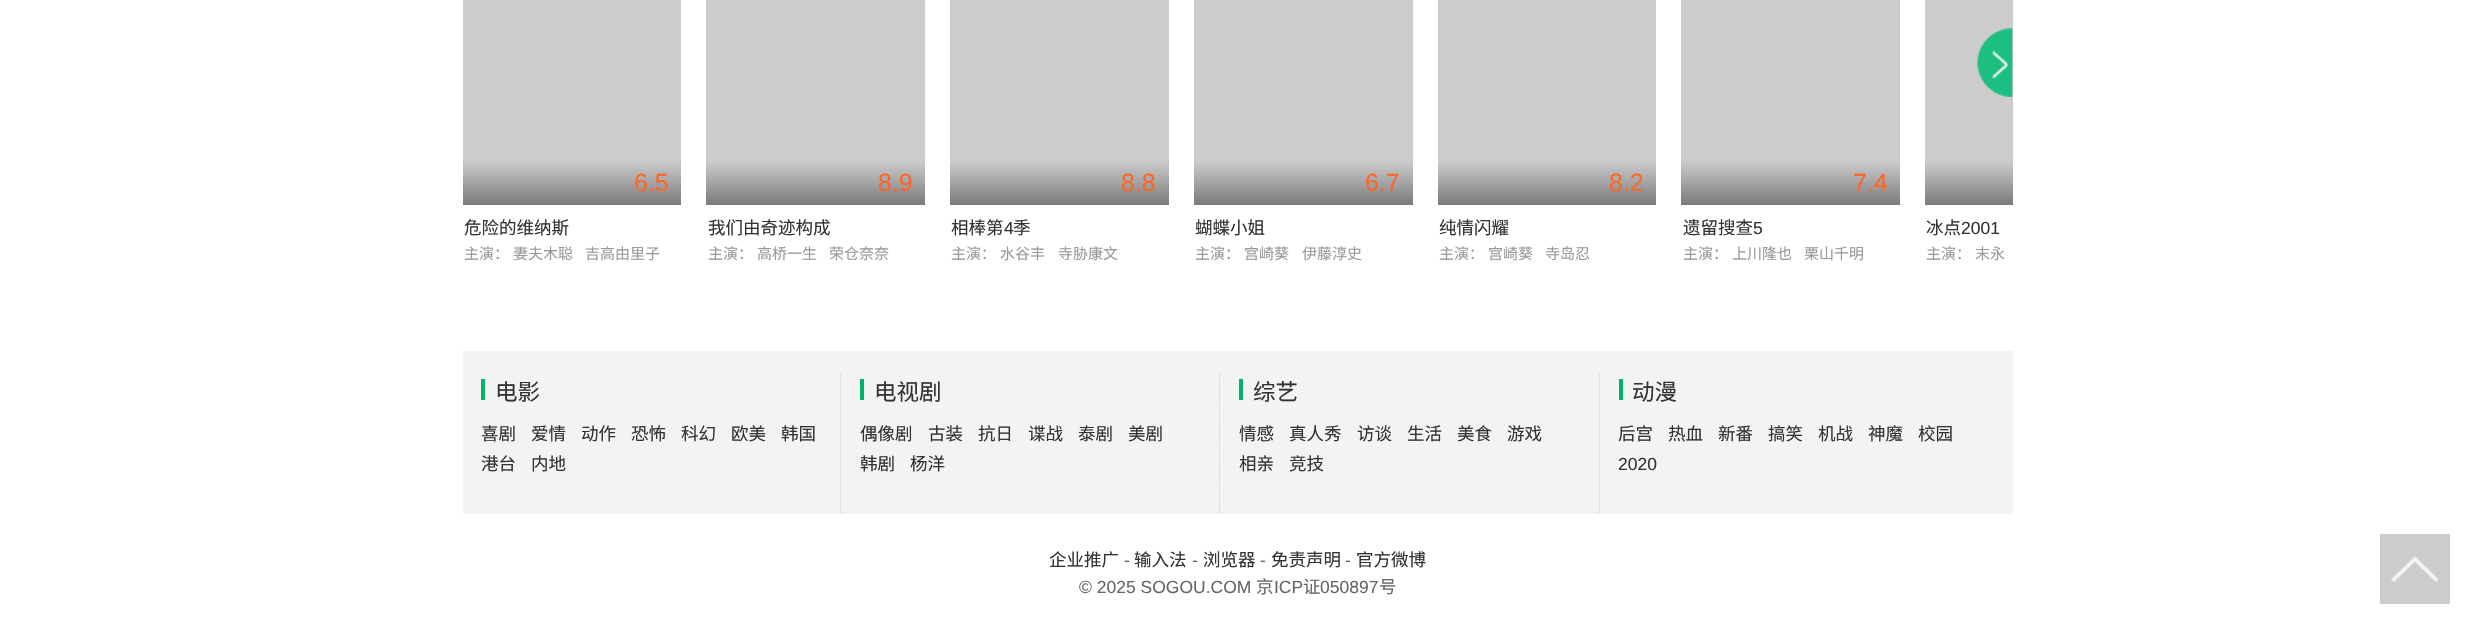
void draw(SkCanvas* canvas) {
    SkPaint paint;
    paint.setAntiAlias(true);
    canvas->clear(0xFFFFFFFF);
    paint.setColor(0xFFCCCCCC);
    canvas->drawRect(SkRect::MakeXYWH(1925, 0, 88, 161), paint);
    canvas->drawImageRect(SkImages::DeferredFromEncodedData(SkData::MakeFromFileName("img1.png")), SkRect::MakeXYWH(1977, 28, 36, 69), SkSamplingOptions());
    canvas->drawRect(SkRect::MakeXYWH(463, 0, 218, 161), paint);
    {
        const SkColor colors[] = {0xFFCCCCCC, 0xFF7A7A7A};
        const float stops[] = {0, 1};
        const SkPoint ends[] = {{463, 161}, {463, 205}};
        paint.setShader(SkGradientShader::MakeLinear(ends, colors, stops, 2, SkTileMode::kClamp));
        paint.setAlpha(255);
    }
    canvas->drawRect(SkRect::MakeXYWH(463, 161, 218, 44), paint);
    SkFont font1(fontMgr->matchFamilyStyle("Liberation Sans", SkFontStyle::Normal()), 25);
    font1.setSubpixel(true);
    paint.setShader(nullptr);
    paint.setColor(0xFFFF6525);
    canvas->drawString("6.5", 634, 191, font1, paint);
    SkFont font2(fontMgr->matchFamilyStyle("Noto Sans CJK SC", SkFontStyle::Normal()), 17.5f);
    font2.setSubpixel(true);
    paint.setColor(0xFF333333);
    canvas->drawString("危险的维纳斯", 464, 234, font2, paint);
    SkFont font3(fontMgr->matchFamilyStyle("Noto Sans CJK SC", SkFontStyle::Normal()), 15);
    font3.setSubpixel(true);
    paint.setColor(0xFF999999);
    canvas->drawString("主演：", 464, 259, font3, paint);
    canvas->drawString("妻夫木聪", 513, 259, font3, paint);
    canvas->drawString("吉高由里子", 585, 259, font3, paint);
    paint.setColor(0xFFCCCCCC);
    canvas->drawRect(SkRect::MakeXYWH(706, 0, 219, 161), paint);
    {
        const SkColor colors[] = {0xFFCCCCCC, 0xFF7A7A7A};
        const float stops[] = {0, 1};
        const SkPoint ends[] = {{706, 161}, {706, 205}};
        paint.setShader(SkGradientShader::MakeLinear(ends, colors, stops, 2, SkTileMode::kClamp));
        paint.setAlpha(255);
    }
    canvas->drawRect(SkRect::MakeXYWH(706, 161, 219, 44), paint);
    paint.setShader(nullptr);
    paint.setColor(0xFFFF6525);
    canvas->drawString("8.9", 878, 191, font1, paint);
    paint.setColor(0xFF333333);
    canvas->drawString("我们由奇迹构成", 708, 234, font2, paint);
    paint.setColor(0xFF999999);
    canvas->drawString("主演：", 708, 259, font3, paint);
    canvas->drawString("高桥一生", 757, 259, font3, paint);
    canvas->drawString("荣仓奈奈", 829, 259, font3, paint);
    paint.setColor(0xFFCCCCCC);
    canvas->drawRect(SkRect::MakeXYWH(950, 0, 219, 161), paint);
    {
        const SkColor colors[] = {0xFFCCCCCC, 0xFF7A7A7A};
        const float stops[] = {0, 1};
        const SkPoint ends[] = {{950, 161}, {950, 205}};
        paint.setShader(SkGradientShader::MakeLinear(ends, colors, stops, 2, SkTileMode::kClamp));
        paint.setAlpha(255);
    }
    canvas->drawRect(SkRect::MakeXYWH(950, 161, 219, 44), paint);
    paint.setShader(nullptr);
    paint.setColor(0xFFFF6525);
    canvas->drawString("8.8", 1121, 191, font1, paint);
    paint.setColor(0xFF333333);
    canvas->drawString("相棒第", 951, 234, font2, paint);
    SkFont font4(fontMgr->matchFamilyStyle("Liberation Sans", SkFontStyle::Normal()), 17.5f);
    font4.setSubpixel(true);
    canvas->drawString("4", 1004, 234, font4, paint);
    canvas->drawString("季", 1013, 234, font2, paint);
    paint.setColor(0xFF999999);
    canvas->drawString("主演：", 951, 259, font3, paint);
    canvas->drawString("水谷丰", 1000, 259, font3, paint);
    canvas->drawString("寺胁康文", 1058, 259, font3, paint);
    paint.setColor(0xFFCCCCCC);
    canvas->drawRect(SkRect::MakeXYWH(1194, 0, 219, 161), paint);
    {
        const SkColor colors[] = {0xFFCCCCCC, 0xFF7A7A7A};
        const float stops[] = {0, 1};
        const SkPoint ends[] = {{1194, 161}, {1194, 205}};
        paint.setShader(SkGradientShader::MakeLinear(ends, colors, stops, 2, SkTileMode::kClamp));
        paint.setAlpha(255);
    }
    canvas->drawRect(SkRect::MakeXYWH(1194, 161, 219, 44), paint);
    paint.setShader(nullptr);
    paint.setColor(0xFFFF6525);
    canvas->drawString("6.7", 1365, 191, font1, paint);
    paint.setColor(0xFF333333);
    canvas->drawString("蝴蝶小姐", 1195, 234, font2, paint);
    paint.setColor(0xFF999999);
    canvas->drawString("主演：", 1195, 259, font3, paint);
    canvas->drawString("宫崎葵", 1244, 259, font3, paint);
    canvas->drawString("伊藤淳史", 1302, 259, font3, paint);
    paint.setColor(0xFFCCCCCC);
    canvas->drawRect(SkRect::MakeXYWH(1438, 0, 218, 161), paint);
    {
        const SkColor colors[] = {0xFFCCCCCC, 0xFF7A7A7A};
        const float stops[] = {0, 1};
        const SkPoint ends[] = {{1438, 161}, {1438, 205}};
        paint.setShader(SkGradientShader::MakeLinear(ends, colors, stops, 2, SkTileMode::kClamp));
        paint.setAlpha(255);
    }
    canvas->drawRect(SkRect::MakeXYWH(1438, 161, 218, 44), paint);
    paint.setShader(nullptr);
    paint.setColor(0xFFFF6525);
    canvas->drawString("8.2", 1609, 191, font1, paint);
    paint.setColor(0xFF333333);
    canvas->drawString("纯情闪耀", 1439, 234, font2, paint);
    paint.setColor(0xFF999999);
    canvas->drawString("主演：", 1439, 259, font3, paint);
    canvas->drawString("宫崎葵", 1488, 259, font3, paint);
    canvas->drawString("寺岛忍", 1545, 259, font3, paint);
    paint.setColor(0xFFCCCCCC);
    canvas->drawRect(SkRect::MakeXYWH(1681, 0, 219, 161), paint);
    {
        const SkColor colors[] = {0xFFCCCCCC, 0xFF7A7A7A};
        const float stops[] = {0, 1};
        const SkPoint ends[] = {{1681, 161}, {1681, 205}};
        paint.setShader(SkGradientShader::MakeLinear(ends, colors, stops, 2, SkTileMode::kClamp));
        paint.setAlpha(255);
    }
    canvas->drawRect(SkRect::MakeXYWH(1681, 161, 219, 44), paint);
    paint.setShader(nullptr);
    paint.setColor(0xFFFF6525);
    canvas->drawString("7.4", 1853, 191, font1, paint);
    paint.setColor(0xFF333333);
    canvas->drawString("遗留搜查", 1683, 234, font2, paint);
    canvas->drawString("5", 1753, 234, font4, paint);
    paint.setColor(0xFF999999);
    canvas->drawString("主演：", 1683, 259, font3, paint);
    canvas->drawString("上川隆也", 1732, 259, font3, paint);
    canvas->drawString("栗山千明", 1804, 259, font3, paint);
    {
        const SkColor colors[] = {0xFFCCCCCC, 0xFF7A7A7A};
        const float stops[] = {0, 1};
        const SkPoint ends[] = {{1925, 161}, {1925, 205}};
        paint.setShader(SkGradientShader::MakeLinear(ends, colors, stops, 2, SkTileMode::kClamp));
        paint.setAlpha(255);
    }
    canvas->drawRect(SkRect::MakeXYWH(1925, 161, 88, 44), paint);
    paint.setShader(nullptr);
    paint.setColor(0xFF333333);
    canvas->drawString("冰点", 1926, 234, font2, paint);
    canvas->drawString("2001", 1961, 234, font4, paint);
    paint.setColor(0xFF999999);
    canvas->drawString("主演：", 1926, 259, font3, paint);
    canvas->drawString("末永", 1975, 259, font3, paint);
    paint.setColor(0xFFF3F3F3);
    canvas->drawRect(SkRect::MakeXYWH(463, 351, 1550, 163), paint);
    paint.setColor(0xFF00B269);
    canvas->drawRect(SkRect::MakeXYWH(481, 379, 4, 21), paint);
    SkFont font5(fontMgr->matchFamilyStyle("Noto Sans CJK SC", SkFontStyle::Normal()), 22.5f);
    font5.setSubpixel(true);
    paint.setColor(0xFF333333);
    canvas->drawString("电影", 495, 400, font5, paint);
    canvas->drawString("喜剧", 481, 440, font2, paint);
    canvas->drawString("爱情", 531, 440, font2, paint);
    canvas->drawString("动作", 581, 440, font2, paint);
    canvas->drawString("恐怖", 631, 440, font2, paint);
    canvas->drawString("科幻", 681, 440, font2, paint);
    canvas->drawString("欧美", 731, 440, font2, paint);
    canvas->drawString("韩国", 781, 440, font2, paint);
    canvas->drawString("港台", 481, 470, font2, paint);
    canvas->drawString("内地", 531, 470, font2, paint);
    canvas->save();
    canvas->clipRect(SkRect::MakeXYWH(463, 351, 1550, 163));
    paint.setStyle(SkPaint::kStroke_Style);
    paint.setStrokeWidth(1.2f);
    paint.setColor(0xFFD0D0D0);
    paint.setPathEffect(SkDashPathEffect::Make({{1.25f, 1.25f}}, 0));
    canvas->drawPath(SkPathBuilder().moveTo(840.5f, 374).lineTo(840.5f, 525).detach(), paint);
    paint.setPathEffect(nullptr);
    canvas->restore();
    paint.setStyle(SkPaint::kFill_Style);
    paint.setColor(0xFF00B269);
    canvas->drawRect(SkRect::MakeXYWH(860, 379, 4, 21), paint);
    paint.setColor(0xFF333333);
    canvas->drawString("电视剧", 874, 400, font5, paint);
    canvas->drawString("偶像剧", 860, 440, font2, paint);
    canvas->drawString("古装", 928, 440, font2, paint);
    canvas->drawString("抗日", 978, 440, font2, paint);
    canvas->drawString("谍战", 1028, 440, font2, paint);
    canvas->drawString("泰剧", 1078, 440, font2, paint);
    canvas->drawString("美剧", 1128, 440, font2, paint);
    canvas->drawString("韩剧", 860, 470, font2, paint);
    canvas->drawString("杨洋", 910, 470, font2, paint);
    canvas->save();
    canvas->clipRect(SkRect::MakeXYWH(463, 351, 1550, 163));
    paint.setStyle(SkPaint::kStroke_Style);
    paint.setColor(0xFFD0D0D0);
    paint.setPathEffect(SkDashPathEffect::Make({{1.25f, 1.25f}}, 0));
    canvas->drawPath(SkPathBuilder().moveTo(1219.5f, 374).lineTo(1219.5f, 525).detach(), paint);
    paint.setPathEffect(nullptr);
    canvas->restore();
    paint.setStyle(SkPaint::kFill_Style);
    paint.setColor(0xFF00B269);
    canvas->drawRect(SkRect::MakeXYWH(1239, 379, 4, 21), paint);
    paint.setColor(0xFF333333);
    canvas->drawString("综艺", 1253, 400, font5, paint);
    canvas->drawString("情感", 1239, 440, font2, paint);
    canvas->drawString("真人秀", 1289, 440, font2, paint);
    canvas->drawString("访谈", 1357, 440, font2, paint);
    canvas->drawString("生活", 1407, 440, font2, paint);
    canvas->drawString("美食", 1457, 440, font2, paint);
    canvas->drawString("游戏", 1507, 440, font2, paint);
    canvas->drawString("相亲", 1239, 470, font2, paint);
    canvas->drawString("竞技", 1289, 470, font2, paint);
    canvas->save();
    canvas->clipRect(SkRect::MakeXYWH(463, 351, 1550, 163));
    paint.setStyle(SkPaint::kStroke_Style);
    paint.setColor(0xFFD0D0D0);
    paint.setPathEffect(SkDashPathEffect::Make({{1.25f, 1.25f}}, 0));
    canvas->drawPath(SkPathBuilder().moveTo(1599.5f, 374).lineTo(1599.5f, 525).detach(), paint);
    paint.setPathEffect(nullptr);
    canvas->restore();
    paint.setStyle(SkPaint::kFill_Style);
    paint.setColor(0xFF00B269);
    canvas->drawRect(SkRect::MakeXYWH(1619, 379, 4, 21), paint);
    paint.setColor(0xFF333333);
    canvas->drawString("动漫", 1632, 400, font5, paint);
    canvas->drawString("后宫", 1618, 440, font2, paint);
    canvas->drawString("热血", 1668, 440, font2, paint);
    canvas->drawString("新番", 1718, 440, font2, paint);
    canvas->drawString("搞笑", 1768, 440, font2, paint);
    canvas->drawString("机战", 1818, 440, font2, paint);
    canvas->drawString("神魔", 1868, 440, font2, paint);
    canvas->drawString("校园", 1918, 440, font2, paint);
    canvas->drawString("2020", 1618, 470, font4, paint);
    canvas->drawString("企业推广", 1049, 566, font2, paint);
    paint.setColor(0xFF666666);
    canvas->drawString("-", 1124, 566, font4, paint);
    paint.setColor(0xFF333333);
    canvas->drawString("输入法", 1134, 566, font2, paint);
    paint.setColor(0xFF666666);
    canvas->drawString("-", 1192, 566, font4, paint);
    paint.setColor(0xFF333333);
    canvas->drawString("浏览器", 1203, 566, font2, paint);
    paint.setColor(0xFF666666);
    canvas->drawString("-", 1260, 566, font4, paint);
    paint.setColor(0xFF333333);
    canvas->drawString("免责声明", 1271, 566, font2, paint);
    paint.setColor(0xFF666666);
    canvas->drawString("-", 1345, 566, font4, paint);
    paint.setColor(0xFF333333);
    canvas->drawString("官方微博", 1356, 566, font2, paint);
    paint.setColor(0xFF666666);
    canvas->drawString("© 2025 SOGOU.COM", 1079, 593, font4, paint);
    canvas->drawString("京", 1256, 593, font2, paint);
    canvas->drawString("ICP", 1274, 593, font4, paint);
    canvas->drawString("证", 1303, 593, font2, paint);
    canvas->drawString("050897", 1320, 593, font4, paint);
    canvas->drawString("号", 1379, 593, font2, paint);
    paint.setColor(0xFFCCCCCC);
    canvas->drawRect(SkRect::MakeXYWH(2380, 534, 70, 70), paint);
    canvas->drawImageRect(SkImages::DeferredFromEncodedData(SkData::MakeFromFileName("img2.png")), SkRect::MakeXYWH(2391, 556, 48, 26), SkSamplingOptions());
}
